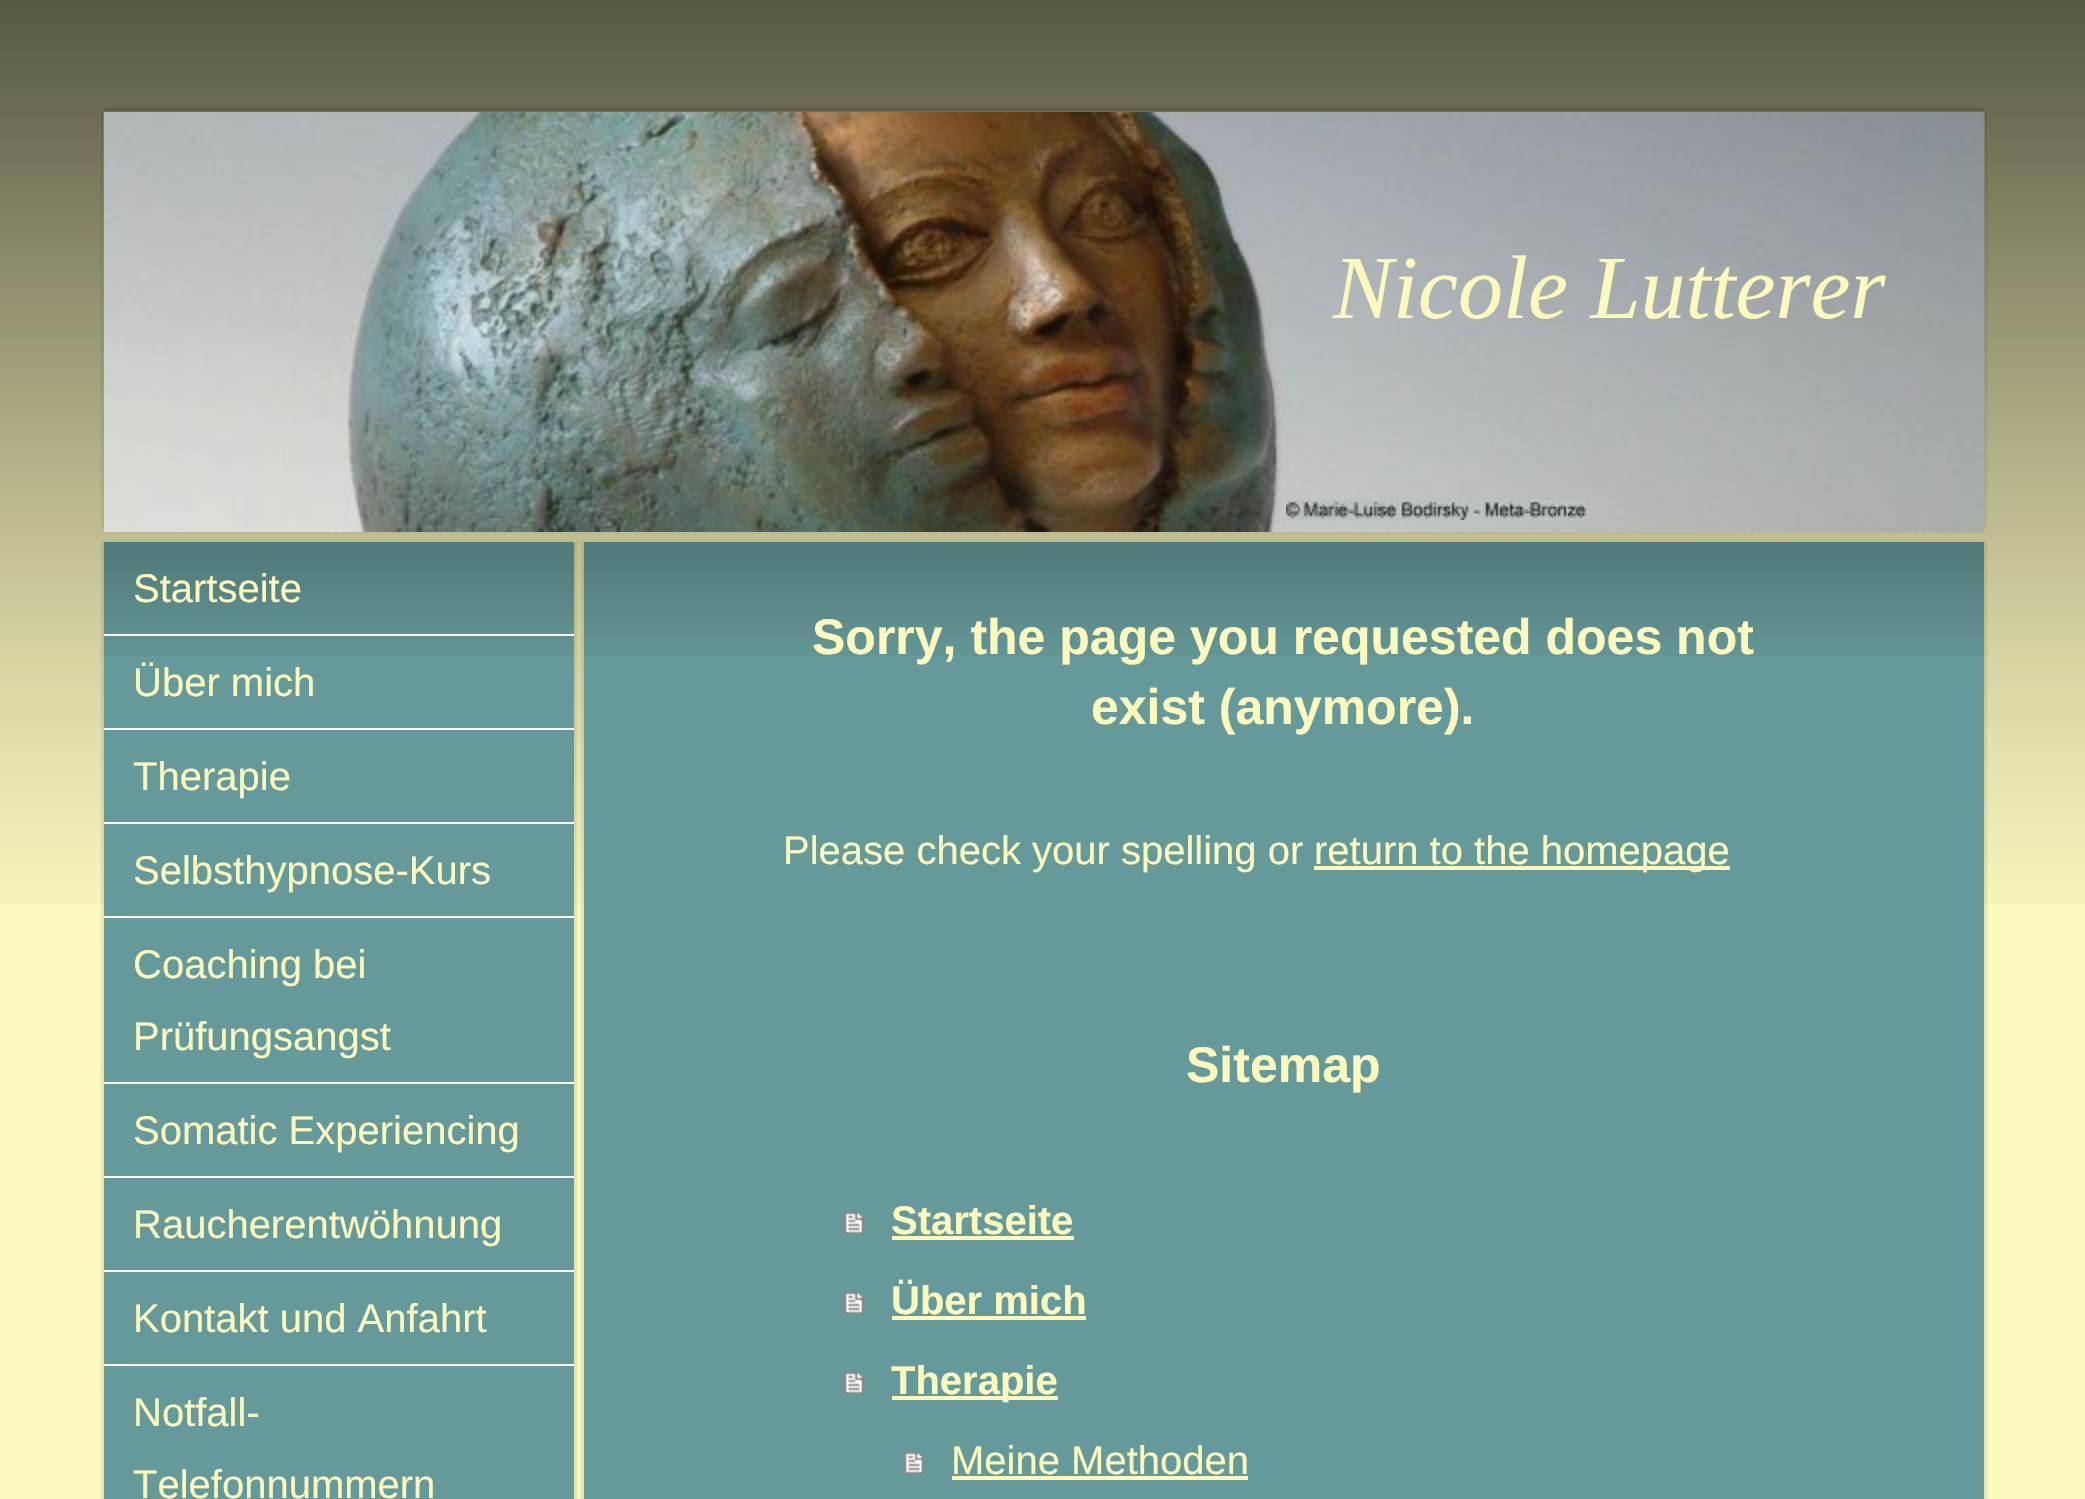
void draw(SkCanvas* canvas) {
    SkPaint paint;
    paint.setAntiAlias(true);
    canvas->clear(0xFFFBF9BE);
    canvas->drawImageRect(SkImages::DeferredFromEncodedData(SkData::MakeFromFileName("img1.png")), SkRect::MakeXYWH(0, 0, 2085, 904), SkSamplingOptions());
    canvas->drawImageRect(SkImages::DeferredFromEncodedData(SkData::MakeFromFileName("img2.png")), SkRect::MakeXYWH(100, 107, 1888, 427), SkSamplingOptions());
    canvas->drawImageRect(SkImages::DeferredFromEncodedData(SkData::MakeFromFileName("img3.png")), SkRect::MakeXYWH(104, 112, 1880, 420), SkSamplingOptions());
    SkFont font1(fontMgr->matchFamilyStyle("Liberation Serif", SkFontStyle::Italic()), 90);
    font1.setSubpixel(true);
    paint.setColor(0xFFFBF9BE);
    canvas->drawString("Nicole Lutterer", 1333, 318, font1, paint);
    canvas->drawImageRect(SkImages::DeferredFromEncodedData(SkData::MakeFromFileName("img4.png")), SkRect::MakeXYWH(1286, 500, 300, 20), SkSamplingOptions());
    paint.setColor(0xFFBCBB8E);
    canvas->drawRect(SkRect::MakeXYWH(105, 540, 468, 2), paint);
    canvas->drawImageRect(SkImages::DeferredFromEncodedData(SkData::MakeFromFileName("img5.png")), SkRect::MakeXYWH(100, 542, 478, 957), SkSamplingOptions());
    paint.setColor(0xFF669999);
    canvas->drawRect(SkRect::MakeXYWH(104, 542, 470, 957), paint);
    canvas->drawImageRect(SkImages::DeferredFromEncodedData(SkData::MakeFromFileName("img6.png")), SkRect::MakeXYWH(104, 542, 470, 114), SkSamplingOptions());
    paint.setColor(0xFFFFFFFF);
    canvas->drawRect(SkRect::MakeXYWH(104, 634, 470, 2), paint);
    SkFont font2(fontMgr->matchFamilyStyle("Liberation Sans", SkFontStyle::Normal()), 40);
    font2.setSubpixel(true);
    paint.setColor(0xFFFBF9BE);
    canvas->drawString("Startseite", 133, 602, font2, paint);
    paint.setColor(0xFFFFFFFF);
    canvas->drawRect(SkRect::MakeXYWH(104, 728, 470, 2), paint);
    paint.setColor(0xFFFBF9BE);
    canvas->drawString("Über mich", 133, 696, font2, paint);
    paint.setColor(0xFFFFFFFF);
    canvas->drawRect(SkRect::MakeXYWH(104, 822, 470, 2), paint);
    paint.setColor(0xFFFBF9BE);
    canvas->drawString("Therapie", 133, 790, font2, paint);
    paint.setColor(0xFFFFFFFF);
    canvas->drawRect(SkRect::MakeXYWH(104, 916, 470, 2), paint);
    paint.setColor(0xFFFBF9BE);
    canvas->drawString("Selbsthypnose-Kurs", 133, 884, font2, paint);
    paint.setColor(0xFFFFFFFF);
    canvas->drawRect(SkRect::MakeXYWH(104, 1082, 470, 2), paint);
    paint.setColor(0xFFFBF9BE);
    canvas->drawString("Coaching bei", 133, 978, font2, paint);
    canvas->drawString("Prüfungsangst", 133, 1050, font2, paint);
    paint.setColor(0xFFFFFFFF);
    canvas->drawRect(SkRect::MakeXYWH(104, 1176, 470, 2), paint);
    paint.setColor(0xFFFBF9BE);
    canvas->drawString("Somatic Experiencing", 133, 1144, font2, paint);
    paint.setColor(0xFFFFFFFF);
    canvas->drawRect(SkRect::MakeXYWH(104, 1270, 470, 2), paint);
    paint.setColor(0xFFFBF9BE);
    canvas->drawString("Raucherentwöhnung", 133, 1238, font2, paint);
    paint.setColor(0xFFFFFFFF);
    canvas->drawRect(SkRect::MakeXYWH(104, 1364, 470, 2), paint);
    paint.setColor(0xFFFBF9BE);
    canvas->drawString("Kontakt und Anfahrt", 133, 1332, font2, paint);
    canvas->drawString("Notfall-", 133, 1426, font2, paint);
    canvas->drawString("Telefonnummern", 133, 1498, font2, paint);
    paint.setColor(0xFFBCBB8E);
    canvas->drawRect(SkRect::MakeXYWH(585, 540, 1398, 2), paint);
    canvas->drawImageRect(SkImages::DeferredFromEncodedData(SkData::MakeFromFileName("img7.png")), SkRect::MakeXYWH(580, 542, 1408, 957), SkSamplingOptions());
    paint.setColor(0xFF669999);
    canvas->drawRect(SkRect::MakeXYWH(584, 542, 1400, 957), paint);
    canvas->drawImageRect(SkImages::DeferredFromEncodedData(SkData::MakeFromFileName("img8.png")), SkRect::MakeXYWH(584, 542, 1400, 114), SkSamplingOptions());
    SkFont font3(fontMgr->matchFamilyStyle("Liberation Sans", SkFontStyle::Bold()), 50);
    font3.setSubpixel(true);
    paint.setColor(0xFFFBF9BE);
    canvas->drawString("Sorry, the page you requested does not", 812, 654, font3, paint);
    canvas->drawString("exist (anymore).", 1091, 724, font3, paint);
    canvas->drawString("Please check your spelling or", 783, 864, font2, paint);
    canvas->drawRect(SkRect::MakeXYWH(1314, 866, 416, 4), paint);
    canvas->drawString("return to the homepage", 1314, 864, font2, paint);
    canvas->drawString("Sitemap", 1186, 1082, font3, paint);
    canvas->drawImageRect(SkImages::DeferredFromEncodedData(SkData::MakeFromFileName("img9.png")), SkRect::MakeXYWH(844, 1211, 21, 23), SkSamplingOptions());
    SkFont font4(fontMgr->matchFamilyStyle("Liberation Sans", SkFontStyle::Bold()), 40);
    font4.setSubpixel(true);
    canvas->drawString("Startseite", 891, 1234, font4, paint);
    canvas->drawRect(SkRect::MakeXYWH(892, 1236, 182, 4), paint);
    canvas->drawImageRect(SkImages::DeferredFromEncodedData(SkData::MakeFromFileName("img9.png")), SkRect::MakeXYWH(844, 1291, 21, 23), SkSamplingOptions());
    canvas->drawString("Über mich", 891, 1314, font4, paint);
    canvas->drawRect(SkRect::MakeXYWH(892, 1316, 194, 4), paint);
    canvas->drawImageRect(SkImages::DeferredFromEncodedData(SkData::MakeFromFileName("img9.png")), SkRect::MakeXYWH(844, 1371, 21, 23), SkSamplingOptions());
    canvas->drawRect(SkRect::MakeXYWH(892, 1396, 166, 4), paint);
    canvas->drawString("Therapie", 891, 1394, font4, paint);
    canvas->drawImageRect(SkImages::DeferredFromEncodedData(SkData::MakeFromFileName("img10.png")), SkRect::MakeXYWH(904, 1451, 21, 23), SkSamplingOptions());
    canvas->drawString("Meine Methoden", 951, 1474, font2, paint);
    canvas->drawRect(SkRect::MakeXYWH(952, 1476, 296, 4), paint);
}
